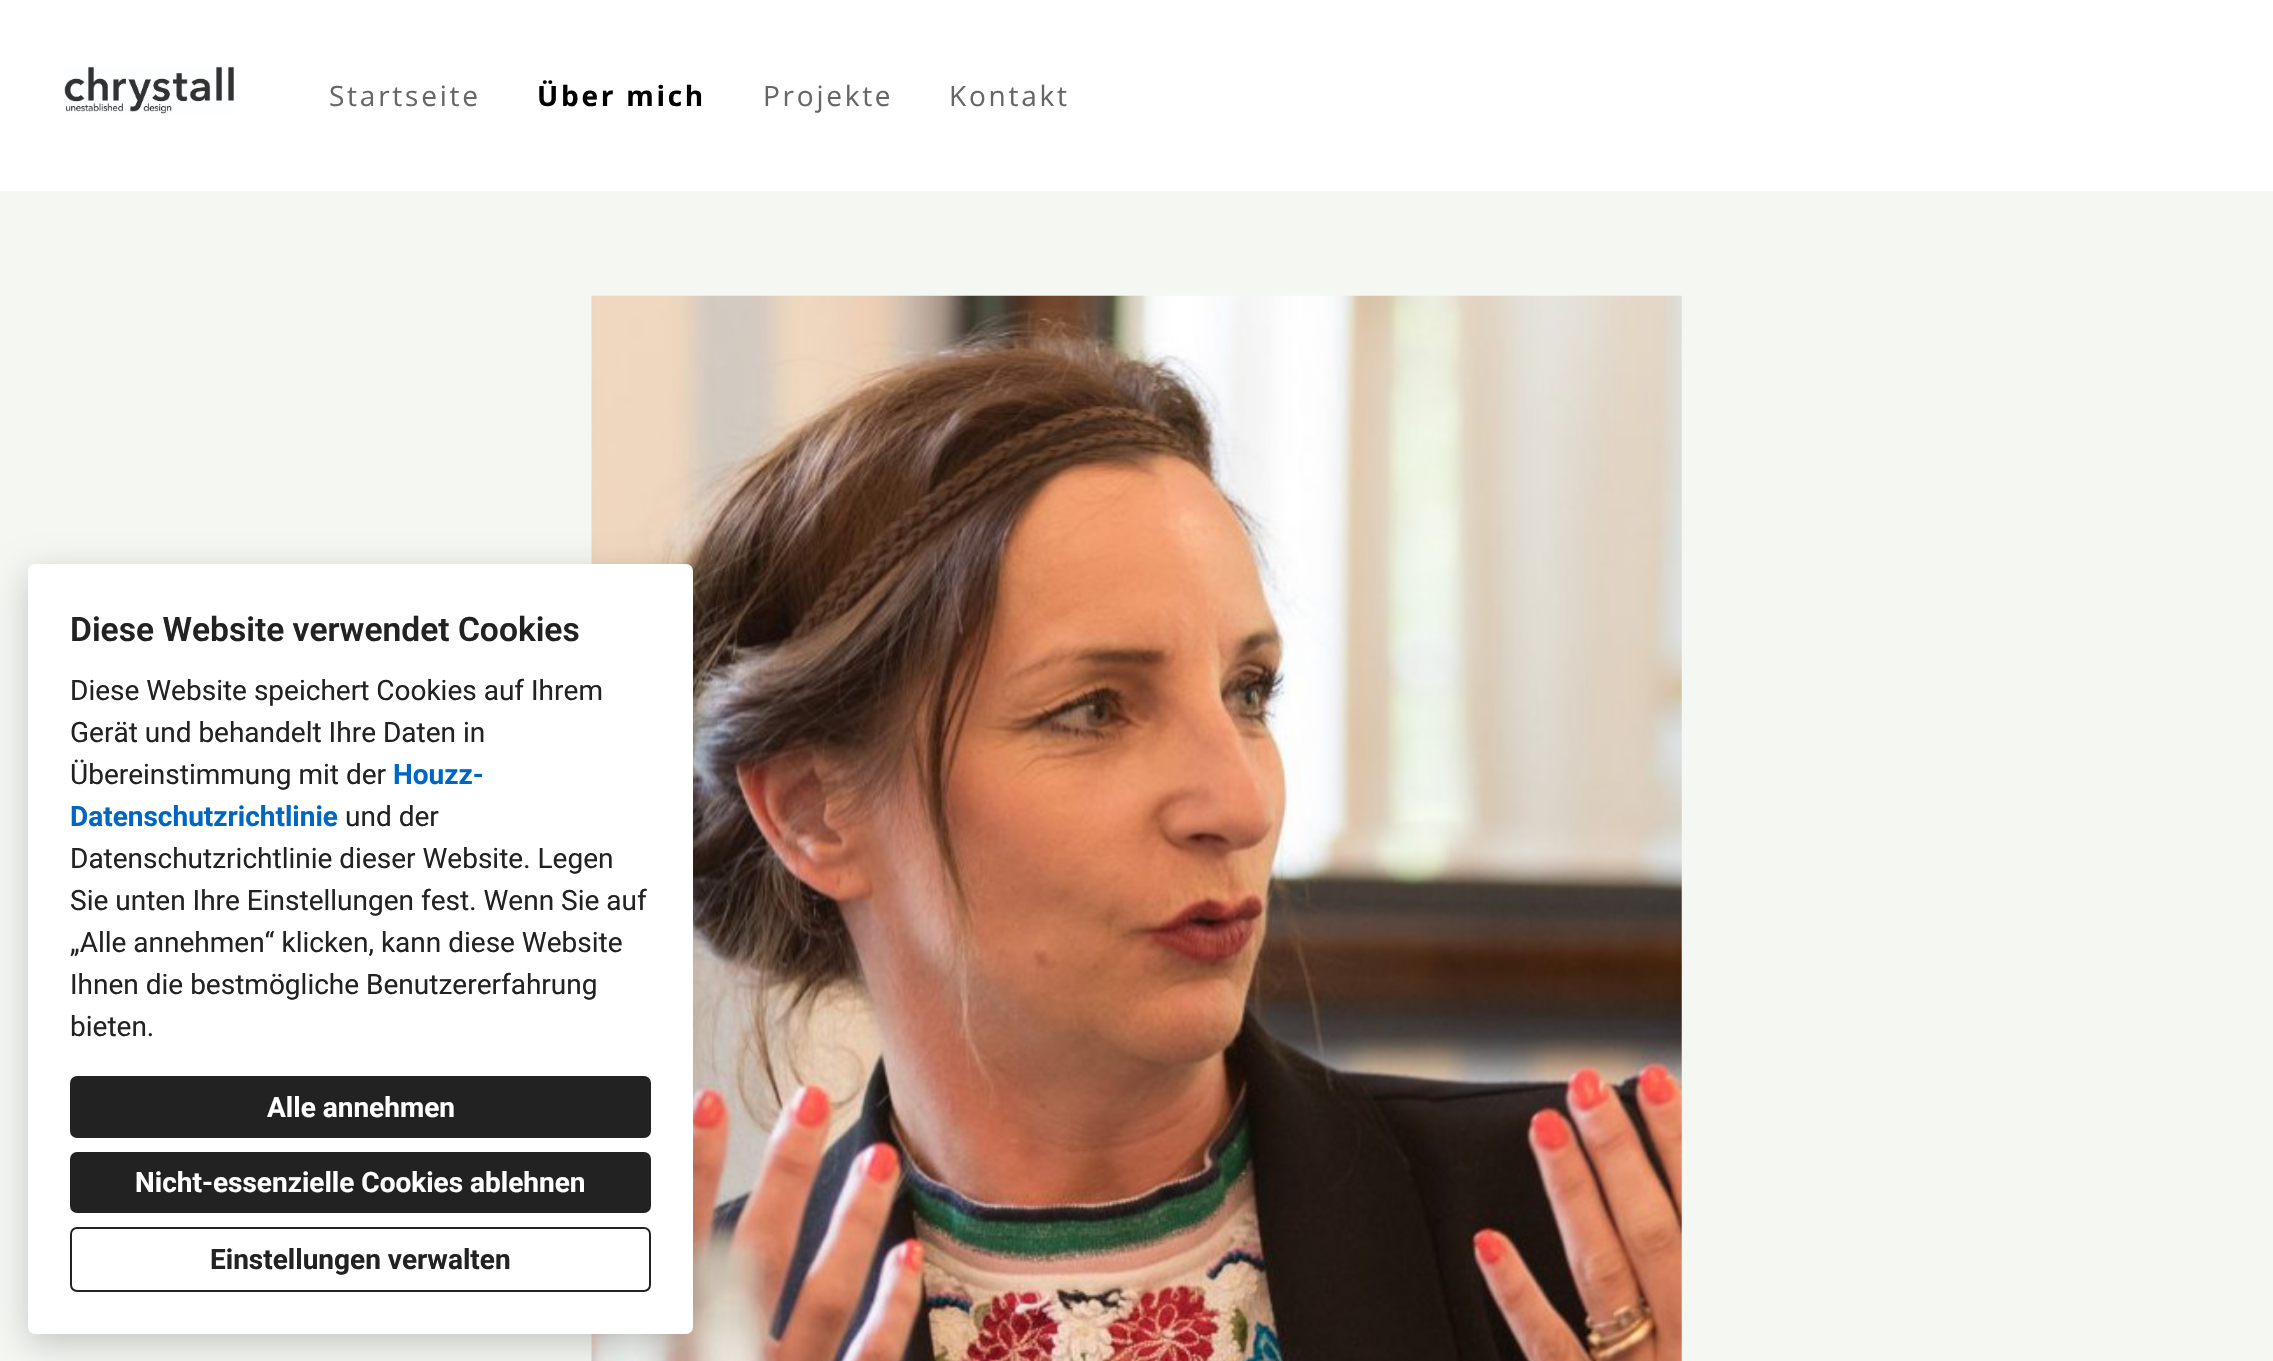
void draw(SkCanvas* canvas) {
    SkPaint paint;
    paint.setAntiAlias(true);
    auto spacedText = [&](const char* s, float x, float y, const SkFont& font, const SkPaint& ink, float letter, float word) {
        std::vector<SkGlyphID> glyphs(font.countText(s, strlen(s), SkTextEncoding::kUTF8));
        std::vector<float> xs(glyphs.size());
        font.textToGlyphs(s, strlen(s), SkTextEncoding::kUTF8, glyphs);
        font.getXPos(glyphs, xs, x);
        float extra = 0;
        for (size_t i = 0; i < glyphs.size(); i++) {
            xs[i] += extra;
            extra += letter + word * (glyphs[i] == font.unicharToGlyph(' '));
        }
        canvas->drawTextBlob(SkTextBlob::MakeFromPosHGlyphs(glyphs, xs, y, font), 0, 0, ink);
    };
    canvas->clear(0xFFF4F7F2);
    paint.setColor(0xFFFFFFFF);
    canvas->drawRect(SkRect::MakeXYWH(0, 0, 2273, 191), paint);
    canvas->drawImageRect(SkImages::DeferredFromEncodedData(SkData::MakeFromFileName("img1.png")), SkRect::MakeXYWH(64, 66, 170, 48), SkSamplingOptions());
    SkFont font1(fontMgr->matchFamilyStyle("Open Sans", SkFontStyle::Normal()), 28);
    font1.setSubpixel(true);
    paint.setColor(0xFF666666);
    spacedText("Startseite", 329, 106, font1, paint, 2.75f, 0);
    SkFont font2(fontMgr->matchFamilyStyle("Open Sans", SkFontStyle::Bold()), 28);
    font2.setSubpixel(true);
    paint.setColor(0xFF000000);
    spacedText("Über mich", 537, 106, font2, paint, 2.75f, 0);
    paint.setColor(0xFF666666);
    spacedText("Projekte", 763, 106, font1, paint, 2.75f, 0);
    spacedText("Kontakt", 949, 106, font1, paint, 2.75f, 0);
    canvas->drawImageRect(SkImages::DeferredFromEncodedData(SkData::MakeFromFileName("img2.png")), SkRect::MakeXYWH(591, 295, 1091, 1066), SkSamplingOptions());
    paint.setColor(0x33000000);
    paint.setMaskFilter(SkMaskFilter::MakeBlur(kNormal_SkBlurStyle, 17.5f));
    canvas->drawRoundRect(SkRect::MakeXYWH(28, 574, 665, 770), 7, 7, paint);
    paint.setMaskFilter(nullptr);
    paint.setColor(0xFFFFFFFF);
    canvas->drawRoundRect(SkRect::MakeXYWH(28, 564, 665, 770), 7, 7, paint);
    SkFont font3(fontMgr->matchFamilyStyle("Roboto", SkFontStyle(600, SkFontStyle::kNormal_Width, SkFontStyle::kUpright_Slant)), 33.6f);
    font3.setSubpixel(true);
    paint.setColor(0xFF222222);
    canvas->drawString("Diese Website verwendet Cookies", 70, 641, font3, paint);
    SkFont font4(fontMgr->matchFamilyStyle("Roboto", SkFontStyle::Normal()), 28);
    font4.setSubpixel(true);
    canvas->drawString("Diese Website speichert Cookies auf Ihrem", 70, 700, font4, paint);
    canvas->drawString("Gerät und behandelt Ihre Daten in", 70, 742, font4, paint);
    canvas->drawString("Übereinstimmung mit der", 70, 784, font4, paint);
    SkFont font5(fontMgr->matchFamilyStyle("Roboto", SkFontStyle::Bold()), 28);
    font5.setSubpixel(true);
    paint.setColor(0xFF0066C3);
    canvas->drawString("Houzz-", 393, 784, font5, paint);
    canvas->drawString("Datenschutzrichtlinie", 70, 826, font5, paint);
    paint.setColor(0xFF222222);
    canvas->drawString("und der", 345, 826, font4, paint);
    canvas->drawString("Datenschutzrichtlinie dieser Website. Legen", 70, 868, font4, paint);
    canvas->drawString("Sie unten Ihre Einstellungen fest. Wenn Sie auf", 70, 910, font4, paint);
    canvas->drawString("„Alle annehmen“ klicken, kann diese Website", 70, 952, font4, paint);
    canvas->drawString("Ihnen die bestmögliche Benutzererfahrung", 70, 994, font4, paint);
    canvas->drawString("bieten.", 70, 1036, font4, paint);
    canvas->drawRoundRect(SkRect::MakeXYWH(70, 1076, 581, 62), 7, 7, paint);
    paint.setColor(0xFFFFFFFF);
    canvas->drawString("Alle annehmen", 267, 1117, font5, paint);
    paint.setColor(0xFF222222);
    canvas->drawRoundRect(SkRect::MakeXYWH(70, 1152, 581, 61), 7, 7, paint);
    paint.setColor(0xFFFFFFFF);
    canvas->drawString("Nicht-essenzielle Cookies ablehnen", 135, 1192, font5, paint);
    paint.setStyle(SkPaint::kStroke_Style);
    paint.setStrokeWidth(2);
    paint.setColor(0xFF222222);
    canvas->drawRoundRect(SkRect::MakeXYWH(71, 1228, 579, 63), 6, 6, paint);
    paint.setStyle(SkPaint::kFill_Style);
    canvas->drawString("Einstellungen verwalten", 210, 1269, font5, paint);
}
